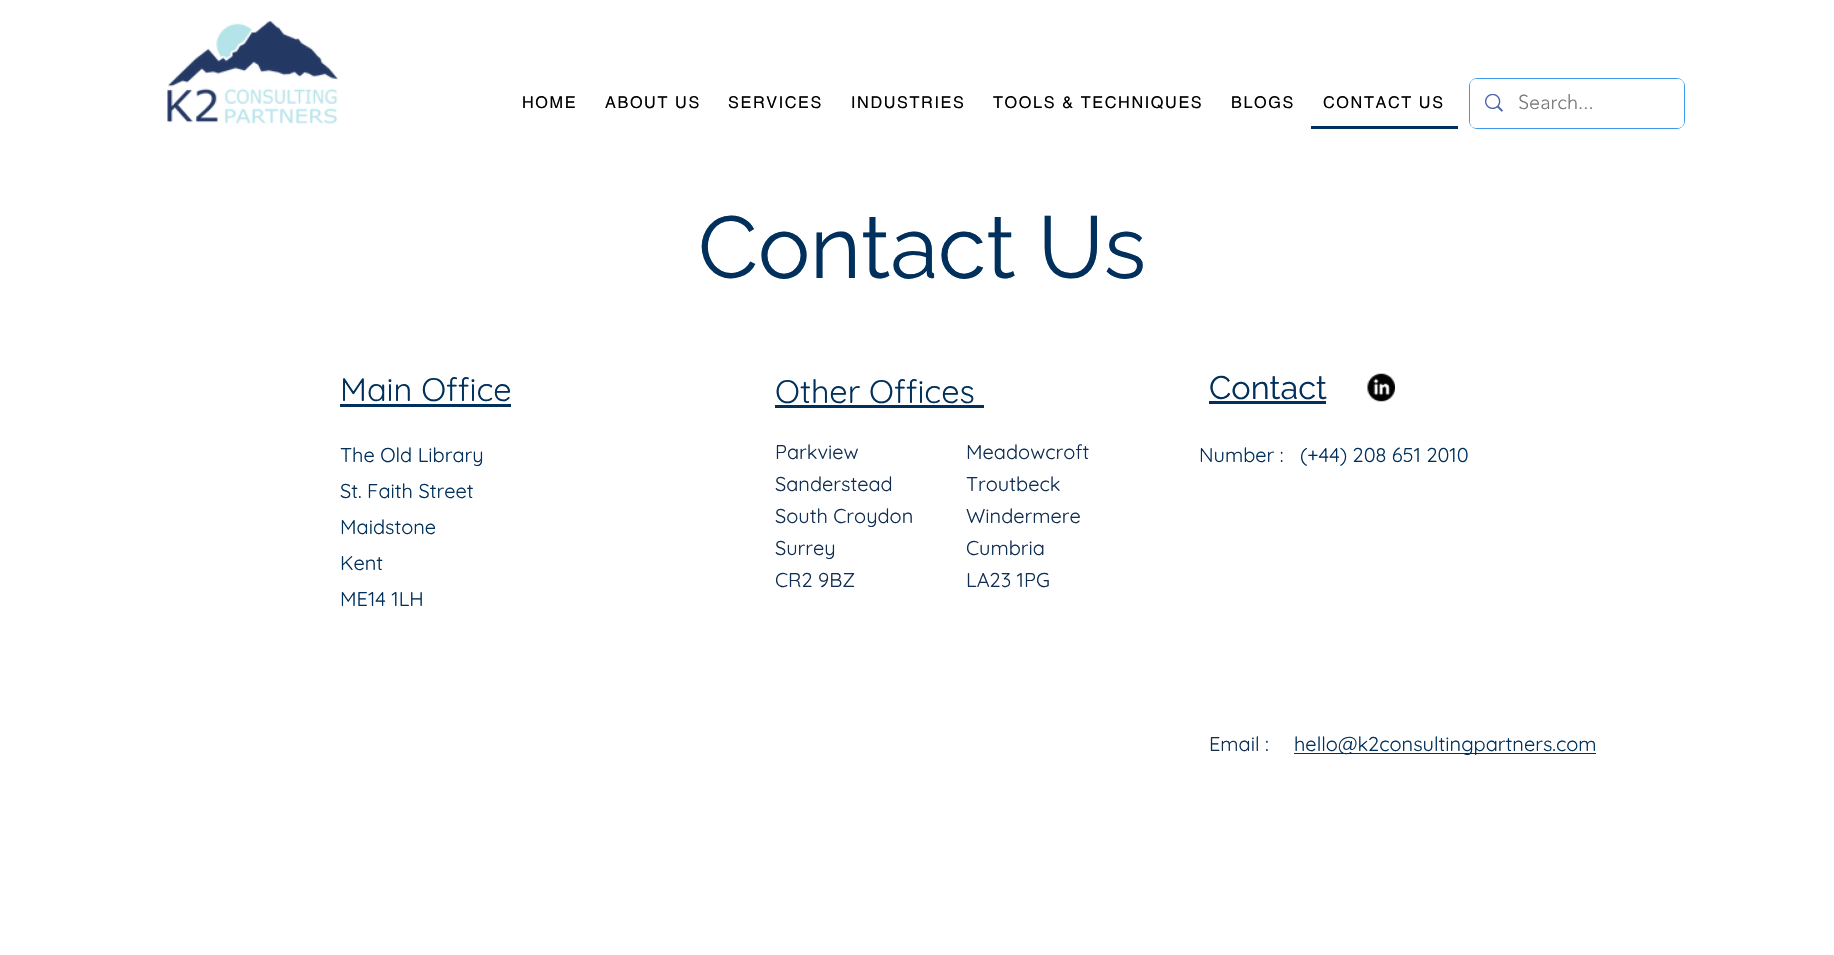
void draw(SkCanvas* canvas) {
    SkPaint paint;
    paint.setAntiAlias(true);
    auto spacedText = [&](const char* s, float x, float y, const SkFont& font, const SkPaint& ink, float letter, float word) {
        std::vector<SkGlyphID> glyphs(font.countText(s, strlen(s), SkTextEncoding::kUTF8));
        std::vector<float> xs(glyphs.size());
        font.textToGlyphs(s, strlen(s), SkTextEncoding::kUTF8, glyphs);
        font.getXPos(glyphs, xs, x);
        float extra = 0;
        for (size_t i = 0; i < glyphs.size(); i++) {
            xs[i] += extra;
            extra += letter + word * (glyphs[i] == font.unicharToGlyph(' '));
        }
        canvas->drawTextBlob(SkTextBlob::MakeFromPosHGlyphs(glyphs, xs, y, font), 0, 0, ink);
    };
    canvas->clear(0xFFFFFFFF);
    canvas->drawImageRect(SkImages::DeferredFromEncodedData(SkData::MakeFromFileName("img1.png")), SkRect::MakeXYWH(167, 21, 171, 103), SkSamplingOptions());
    SkFont font1(fontMgr->matchFamilyStyle("helvetica", SkFontStyle::Normal()), 16.25f);
    font1.setSubpixel(true);
    paint.setColor(0xFF000000);
    spacedText("HOME", 522, 108, font1, paint, 1.6f, 0);
    spacedText("ABOUT US", 605, 108, font1, paint, 1.6f, 0);
    spacedText("SERVICES", 728, 108, font1, paint, 1.6f, 0);
    spacedText("INDUSTRIES", 851, 108, font1, paint, 1.6f, 0);
    spacedText("TOOLS & TECHNIQUES", 993, 108, font1, paint, 1.6f, 0);
    spacedText("BLOGS", 1231, 108, font1, paint, 1.6f, 0);
    paint.setColor(0xFF00305B);
    canvas->drawRect(SkRect::MakeXYWH(1311, 126, 147, 3), paint);
    paint.setColor(0xFF000000);
    spacedText("CONTACT US", 1323, 108, font1, paint, 1.6f, 0);
    paint.setStyle(SkPaint::kStroke_Style);
    paint.setStrokeWidth(1);
    paint.setColor(0xFF3D9BE9);
    canvas->drawRoundRect(SkRect::MakeXYWH(1469.5f, 78.5f, 215, 50), 7.5f, 7.5f, paint);
    paint.setStyle(SkPaint::kFill_Style);
    paint.setColor(0xFFFFFFFF);
    canvas->drawRoundRect(SkRect::MakeXYWH(1470, 79, 214, 49), 6, 6, paint);
    canvas->drawImageRect(SkImages::DeferredFromEncodedData(SkData::MakeFromFileName("img2.png")), SkRect::MakeXYWH(1485, 94, 18, 18), SkSamplingOptions());
    SkFont font2(fontMgr->matchFamilyStyle("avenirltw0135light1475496", SkFontStyle(300, SkFontStyle::kNormal_Width, SkFontStyle::kUpright_Slant)), 20);
    font2.setSubpixel(true);
    paint.setColor(0xFF787878);
    canvas->drawString("Search...", 1518, 109, font2, paint);
    SkFont font3(fontMgr->matchFamilyStyle("Raleway", SkFontStyle::Normal()), 87.5f);
    font3.setSubpixel(true);
    paint.setColor(0xFF00305B);
    canvas->drawString("Contact Us", 698, 278, font3, paint);
    SkFont font4(fontMgr->matchFamilyStyle("Quicksand", SkFontStyle::Normal()), 32.5f);
    font4.setSubpixel(true);
    canvas->drawString("Main Office", 340, 401, font4, paint);
    canvas->drawRect(SkRect::MakeXYWH(340, 404, 171, 3), paint);
    canvas->drawString("Other Offices", 775, 403, font4, paint);
    canvas->drawRect(SkRect::MakeXYWH(775, 405, 209, 3), paint);
    SkFont font5(fontMgr->matchFamilyStyle("Raleway", SkFontStyle::Normal()), 32.5f);
    font5.setSubpixel(true);
    canvas->drawString("Contact", 1209, 399, font5, paint);
    canvas->drawRect(SkRect::MakeXYWH(1209, 401, 117, 3), paint);
    canvas->drawImageRect(SkImages::DeferredFromEncodedData(SkData::MakeFromFileName("img3.png")), SkRect::MakeXYWH(1367, 373, 28, 29), SkSamplingOptions());
    SkFont font6(fontMgr->matchFamilyStyle("Quicksand", SkFontStyle::Normal()), 20);
    font6.setSubpixel(true);
    canvas->drawString("The Old Library", 340, 462, font6, paint);
    canvas->drawString("St. Faith Street", 340, 498, font6, paint);
    canvas->drawString("Maidstone", 340, 534, font6, paint);
    canvas->drawString("Kent", 340, 570, font6, paint);
    canvas->drawString("ME14 1LH", 340, 606, font6, paint);
    paint.setColor(0xFF102E52);
    canvas->drawString("Parkview", 775, 459, font6, paint);
    canvas->drawString("Sanderstead", 775, 491, font6, paint);
    canvas->drawString("South Croydon", 775, 523, font6, paint);
    canvas->drawString("Surrey", 775, 555, font6, paint);
    canvas->drawString("CR2 9BZ", 775, 587, font6, paint);
    canvas->drawString("Meadowcroft", 966, 459, font6, paint);
    canvas->drawString("Troutbeck", 966, 491, font6, paint);
    canvas->drawString("Windermere", 966, 523, font6, paint);
    canvas->drawString("Cumbria", 966, 555, font6, paint);
    canvas->drawString("LA23 1PG", 966, 587, font6, paint);
    paint.setColor(0xFF00305B);
    canvas->drawString("Number :   (+44) 208 651 2010", 1199, 462, font6, paint);
    paint.setColor(0xFF102E52);
    canvas->drawString("Email :", 1209, 751, font6, paint);
    paint.setColor(0xFF00305B);
    canvas->drawRect(SkRect::MakeXYWH(1294, 753, 302, 1), paint);
    canvas->drawString("hello@k2consultingpartners.com", 1294, 751, font6, paint);
}
